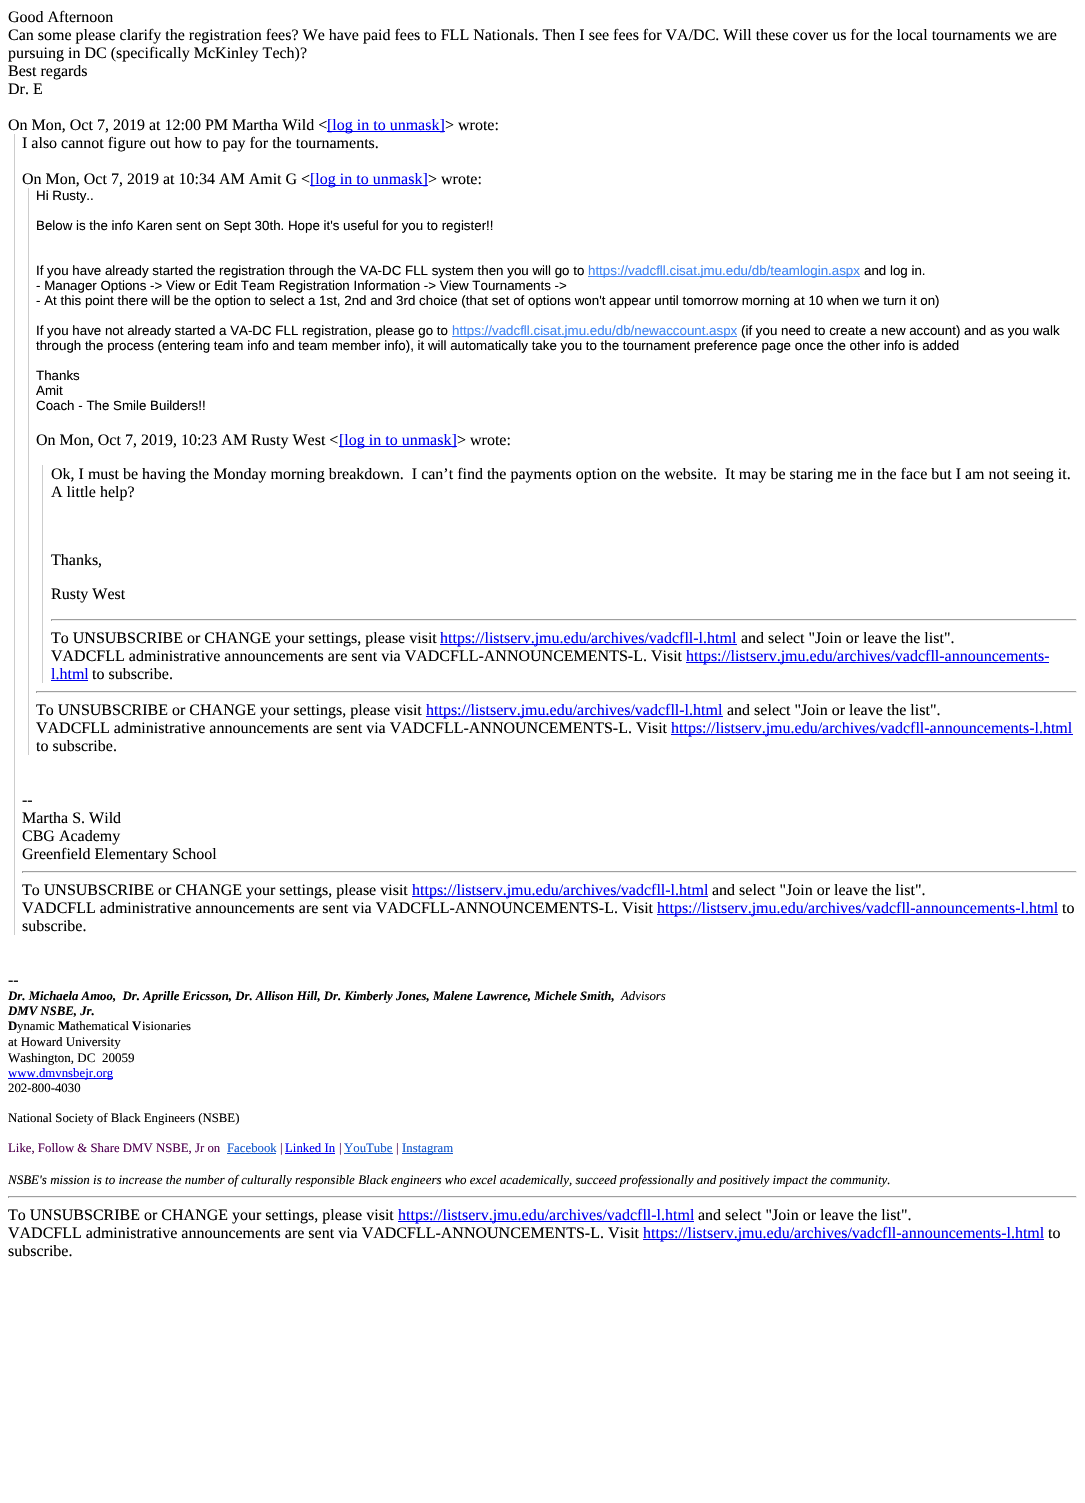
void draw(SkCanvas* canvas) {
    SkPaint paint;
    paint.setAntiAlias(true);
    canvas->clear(0xFFFFFFFF);
    SkFont font1(fontMgr->matchFamilyStyle("Liberation Serif", SkFontStyle::Normal()), 16);
    font1.setSubpixel(true);
    paint.setColor(0xFF000000);
    canvas->drawString("Good Afternoon", 8, 22, font1, paint);
    canvas->drawString("Can some please clarify the registration fees? We have paid fees to FLL Nationals. Then I see fees for VA/DC. Will these cover us for the local tournaments we are", 8, 40, font1, paint);
    canvas->drawString("pursuing in DC (specifically McKinley Tech)?", 8, 58, font1, paint);
    canvas->drawString("Best regards", 8, 76, font1, paint);
    canvas->drawString("Dr. E", 8, 94, font1, paint);
    canvas->drawString("On Mon, Oct 7, 2019 at 12:00 PM Martha Wild <", 8, 130, font1, paint);
    paint.setColor(0xFF0000EE);
    canvas->drawRect(SkRect::MakeXYWH(327, 131, 118, 1), paint);
    canvas->drawString("[log in to unmask]", 327, 130, font1, paint);
    paint.setColor(0xFF000000);
    canvas->drawString("> wrote:", 445, 130, font1, paint);
    paint.setColor(0xFFCCCCCC);
    canvas->drawRect(SkRect::MakeXYWH(14, 134, 1, 801), paint);
    paint.setColor(0xFF000000);
    canvas->drawString("I also cannot figure out how to pay for the tournaments.", 22, 148, font1, paint);
    canvas->drawString("On Mon, Oct 7, 2019 at 10:34 AM Amit G <", 22, 184, font1, paint);
    paint.setColor(0xFF0000EE);
    canvas->drawRect(SkRect::MakeXYWH(310, 185, 118, 1), paint);
    canvas->drawString("[log in to unmask]", 310, 184, font1, paint);
    paint.setColor(0xFF000000);
    canvas->drawString("> wrote:", 428, 184, font1, paint);
    paint.setColor(0xFFCCCCCC);
    canvas->drawRect(SkRect::MakeXYWH(28, 188, 1, 567), paint);
    SkFont font2(fontMgr->matchFamilyStyle("Liberation Sans", SkFontStyle::Normal()), 13.33f);
    font2.setSubpixel(true);
    paint.setColor(0xFF000000);
    canvas->drawString("Hi Rusty..", 36, 200, font2, paint);
    canvas->drawString("Below is the info Karen sent on Sept 30th. Hope it's useful for you to register!!", 36, 230, font2, paint);
    canvas->drawString("If you have already started the registration through the VA-DC FLL system then you will go to", 36, 275, font2, paint);
    paint.setColor(0xFF4285F4);
    canvas->drawRect(SkRect::MakeXYWH(588, 276, 272, 1), paint);
    canvas->drawString("https://vadcfll.cisat.jmu.edu/db/teamlogin.aspx", 588, 275, font2, paint);
    paint.setColor(0xFF000000);
    canvas->drawString("and log in.", 864, 275, font2, paint);
    canvas->drawString("- Manager Options -> View or Edit Team Registration Information -> View Tournaments ->", 36, 290, font2, paint);
    canvas->drawString("- At this point there will be the option to select a 1st, 2nd and 3rd choice (that set of options won't appear until tomorrow morning at 10 when we turn it on)", 36, 305, font2, paint);
    canvas->drawString("If you have not already started a VA-DC FLL registration, please go to", 36, 335, font2, paint);
    paint.setColor(0xFF4285F4);
    canvas->drawRect(SkRect::MakeXYWH(452, 336, 285, 1), paint);
    canvas->drawString("https://vadcfll.cisat.jmu.edu/db/newaccount.aspx", 452, 335, font2, paint);
    paint.setColor(0xFF000000);
    canvas->drawString("(if you need to create a new account) and as you walk", 741, 335, font2, paint);
    canvas->drawString("through the process (entering team info and team member info), it will automatically take you to the tournament preference page once the other info is added", 36, 350, font2, paint);
    canvas->drawString("Thanks", 36, 380, font2, paint);
    canvas->drawString("Amit", 36, 395, font2, paint);
    canvas->drawString("Coach - The Smile Builders!!", 36, 410, font2, paint);
    canvas->drawString("On Mon, Oct 7, 2019, 10:23 AM Rusty West <", 36, 445, font1, paint);
    paint.setColor(0xFF0000EE);
    canvas->drawRect(SkRect::MakeXYWH(339, 446, 118, 1), paint);
    canvas->drawString("[log in to unmask]", 339, 445, font1, paint);
    paint.setColor(0xFF000000);
    canvas->drawString("> wrote:", 457, 445, font1, paint);
    paint.setColor(0xFFCCCCCC);
    canvas->drawRect(SkRect::MakeXYWH(42, 465, 1, 218), paint);
    paint.setColor(0xFF000000);
    canvas->drawString("Ok, I must be having the Monday morning breakdown.  I can’t find the payments option on the website.  It may be staring me in the face but I am not seeing it.", 51, 479, font1, paint);
    canvas->drawString("A little help?", 51, 497, font1, paint);
    canvas->drawString("Thanks,", 51, 565, font1, paint);
    canvas->drawString("Rusty West", 51, 599, font1, paint);
    paint.setColor(0xFF9F9F9F);
    canvas->drawRect(SkRect::MakeXYWH(51, 619, 1026, 1), paint);
    paint.setColor(0xFFEEEEEE);
    canvas->drawRect(SkRect::MakeXYWH(1076, 619, 1, 2), paint);
    canvas->drawRect(SkRect::MakeXYWH(51, 620, 1026, 1), paint);
    paint.setColor(0xFF9F9F9F);
    canvas->drawRect(SkRect::MakeXYWH(51, 619, 1, 2), paint);
    paint.setColor(0xFF000000);
    canvas->drawString("To UNSUBSCRIBE or CHANGE your settings, please visit", 51, 643, font1, paint);
    paint.setColor(0xFF0000EE);
    canvas->drawRect(SkRect::MakeXYWH(440, 644, 297, 1), paint);
    canvas->drawString("https://listserv.jmu.edu/archives/vadcfll-l.html", 440, 643, font1, paint);
    paint.setColor(0xFF000000);
    canvas->drawString("and select \"Join or leave the list\".", 741, 643, font1, paint);
    canvas->drawString("VADCFLL administrative announcements are sent via VADCFLL-ANNOUNCEMENTS-L. Visit", 51, 661, font1, paint);
    paint.setColor(0xFF0000EE);
    canvas->drawRect(SkRect::MakeXYWH(686, 662, 363, 1), paint);
    canvas->drawString("https://listserv.jmu.edu/archives/vadcfll-announcements-", 686, 661, font1, paint);
    canvas->drawString("l.html", 51, 679, font1, paint);
    canvas->drawRect(SkRect::MakeXYWH(51, 680, 37, 1), paint);
    paint.setColor(0xFF000000);
    canvas->drawString("to subscribe.", 92, 679, font1, paint);
    paint.setColor(0xFF9F9F9F);
    canvas->drawRect(SkRect::MakeXYWH(36, 691, 1041, 1), paint);
    paint.setColor(0xFFEEEEEE);
    canvas->drawRect(SkRect::MakeXYWH(1076, 691, 1, 2), paint);
    canvas->drawRect(SkRect::MakeXYWH(36, 692, 1041, 1), paint);
    paint.setColor(0xFF9F9F9F);
    canvas->drawRect(SkRect::MakeXYWH(36, 691, 1, 2), paint);
    paint.setColor(0xFF000000);
    canvas->drawString("To UNSUBSCRIBE or CHANGE your settings, please visit", 36, 715, font1, paint);
    paint.setColor(0xFF0000EE);
    canvas->drawRect(SkRect::MakeXYWH(426, 716, 297, 1), paint);
    canvas->drawString("https://listserv.jmu.edu/archives/vadcfll-l.html", 426, 715, font1, paint);
    paint.setColor(0xFF000000);
    canvas->drawString("and select \"Join or leave the list\".", 727, 715, font1, paint);
    canvas->drawString("VADCFLL administrative announcements are sent via VADCFLL-ANNOUNCEMENTS-L. Visit", 36, 733, font1, paint);
    paint.setColor(0xFF0000EE);
    canvas->drawRect(SkRect::MakeXYWH(671, 734, 402, 1), paint);
    canvas->drawString("https://listserv.jmu.edu/archives/vadcfll-announcements-l.html", 671, 733, font1, paint);
    paint.setColor(0xFF000000);
    canvas->drawString("to subscribe.", 36, 751, font1, paint);
    canvas->drawString("--", 22, 805, font1, paint);
    canvas->drawString("Martha S. Wild", 22, 823, font1, paint);
    canvas->drawString("CBG Academy", 22, 841, font1, paint);
    canvas->drawString("Greenfield Elementary School", 22, 859, font1, paint);
    paint.setColor(0xFF9F9F9F);
    canvas->drawRect(SkRect::MakeXYWH(22, 871, 1055, 1), paint);
    paint.setColor(0xFFEEEEEE);
    canvas->drawRect(SkRect::MakeXYWH(1076, 871, 1, 2), paint);
    canvas->drawRect(SkRect::MakeXYWH(22, 872, 1055, 1), paint);
    paint.setColor(0xFF9F9F9F);
    canvas->drawRect(SkRect::MakeXYWH(22, 871, 1, 2), paint);
    paint.setColor(0xFF000000);
    canvas->drawString("To UNSUBSCRIBE or CHANGE your settings, please visit", 22, 895, font1, paint);
    paint.setColor(0xFF0000EE);
    canvas->drawRect(SkRect::MakeXYWH(412, 896, 296, 1), paint);
    canvas->drawString("https://listserv.jmu.edu/archives/vadcfll-l.html", 412, 895, font1, paint);
    paint.setColor(0xFF000000);
    canvas->drawString("and select \"Join or leave the list\".", 712, 895, font1, paint);
    canvas->drawString("VADCFLL administrative announcements are sent via VADCFLL-ANNOUNCEMENTS-L. Visit", 22, 913, font1, paint);
    paint.setColor(0xFF0000EE);
    canvas->drawRect(SkRect::MakeXYWH(657, 914, 401, 1), paint);
    canvas->drawString("https://listserv.jmu.edu/archives/vadcfll-announcements-l.html", 657, 913, font1, paint);
    paint.setColor(0xFF000000);
    canvas->drawString("to", 1062, 913, font1, paint);
    canvas->drawString("subscribe.", 22, 931, font1, paint);
    canvas->drawString("--", 8, 985, font1, paint);
    SkFont font3(fontMgr->matchFamilyStyle("Liberation Serif", SkFontStyle::BoldItalic()), 12.8f);
    font3.setSubpixel(true);
    canvas->drawString("Dr. Michaela Amoo,  Dr. Aprille Ericsson, Dr. Allison Hill, Dr. Kimberly Jones, Malene Lawrence, Michele Smith,", 8, 1000, font3, paint);
    SkFont font4(fontMgr->matchFamilyStyle("Liberation Serif", SkFontStyle::Italic()), 12.8f);
    font4.setSubpixel(true);
    canvas->drawString("Advisors", 621, 1000, font4, paint);
    canvas->drawString("DMV NSBE, Jr.", 8, 1015, font3, paint);
    SkFont font5(fontMgr->matchFamilyStyle("Liberation Serif", SkFontStyle::Bold()), 12.8f);
    font5.setSubpixel(true);
    canvas->drawString("D", 8, 1030, font5, paint);
    SkFont font6(fontMgr->matchFamilyStyle("Liberation Serif", SkFontStyle::Normal()), 12.8f);
    font6.setSubpixel(true);
    canvas->drawString("ynamic", 17, 1030, font6, paint);
    canvas->drawString("M", 58, 1030, font5, paint);
    canvas->drawString("athematical", 70, 1030, font6, paint);
    canvas->drawString("V", 132, 1030, font5, paint);
    canvas->drawString("isionaries", 142, 1030, font6, paint);
    SkFont font7(fontMgr->matchFamilyStyle("Liberation Serif", SkFontStyle::Normal()), 13);
    font7.setSubpixel(true);
    canvas->drawString("at Howard University", 8, 1046, font7, paint);
    canvas->drawString("Washington, DC  20059", 8, 1062, font7, paint);
    paint.setColor(0xFF0000EE);
    canvas->drawRect(SkRect::MakeXYWH(8, 1078, 105, 1), paint);
    canvas->drawString("www.dmvnsbejr.org", 8, 1077, font6, paint);
    paint.setColor(0xFF000000);
    canvas->drawString("202-800-4030", 8, 1092, font6, paint);
    canvas->drawString("National Society of Black Engineers (NSBE)", 8, 1122, font6, paint);
    paint.setColor(0xFF500050);
    canvas->drawString("Like, Follow & Share DMV NSBE, Jr on", 8, 1152, font6, paint);
    paint.setColor(0xFF1155CC);
    canvas->drawString("Facebook", 227, 1152, font6, paint);
    canvas->drawRect(SkRect::MakeXYWH(227, 1153, 49, 1), paint);
    paint.setColor(0xFF500050);
    canvas->drawString("|", 280, 1152, font6, paint);
    paint.setColor(0xFF0000EE);
    canvas->drawString("Linked In", 285, 1152, font6, paint);
    canvas->drawRect(SkRect::MakeXYWH(285, 1153, 50, 1), paint);
    paint.setColor(0xFF500050);
    canvas->drawString("|", 339, 1152, font6, paint);
    paint.setColor(0xFF1155CC);
    canvas->drawString("YouTube", 344, 1152, font6, paint);
    canvas->drawRect(SkRect::MakeXYWH(344, 1153, 49, 1), paint);
    paint.setColor(0xFF500050);
    canvas->drawString("|", 396, 1152, font6, paint);
    paint.setColor(0xFF1155CC);
    canvas->drawRect(SkRect::MakeXYWH(402, 1153, 51, 1), paint);
    canvas->drawString("Instagram", 402, 1152, font6, paint);
    SkFont font8(fontMgr->matchFamilyStyle("Liberation Serif", SkFontStyle::Italic()), 13);
    font8.setSubpixel(true);
    paint.setColor(0xFF000000);
    canvas->drawString("NSBE's mission is to increase the number of culturally responsible Black engineers who excel academically, succeed professionally and positively impact the community.", 8, 1184, font8, paint);
    paint.setColor(0xFF9F9F9F);
    canvas->drawRect(SkRect::MakeXYWH(8, 1196, 1069, 1), paint);
    paint.setColor(0xFFEEEEEE);
    canvas->drawRect(SkRect::MakeXYWH(1076, 1196, 1, 2), paint);
    canvas->drawRect(SkRect::MakeXYWH(8, 1197, 1069, 1), paint);
    paint.setColor(0xFF9F9F9F);
    canvas->drawRect(SkRect::MakeXYWH(8, 1196, 1, 2), paint);
    paint.setColor(0xFF000000);
    canvas->drawString("To UNSUBSCRIBE or CHANGE your settings, please visit", 8, 1220, font1, paint);
    paint.setColor(0xFF0000EE);
    canvas->drawRect(SkRect::MakeXYWH(398, 1221, 296, 1), paint);
    canvas->drawString("https://listserv.jmu.edu/archives/vadcfll-l.html", 398, 1220, font1, paint);
    paint.setColor(0xFF000000);
    canvas->drawString("and select \"Join or leave the list\".", 698, 1220, font1, paint);
    canvas->drawString("VADCFLL administrative announcements are sent via VADCFLL-ANNOUNCEMENTS-L. Visit", 8, 1238, font1, paint);
    paint.setColor(0xFF0000EE);
    canvas->drawRect(SkRect::MakeXYWH(643, 1239, 401, 1), paint);
    canvas->drawString("https://listserv.jmu.edu/archives/vadcfll-announcements-l.html", 643, 1238, font1, paint);
    paint.setColor(0xFF000000);
    canvas->drawString("to", 1048, 1238, font1, paint);
    canvas->drawString("subscribe.", 8, 1256, font1, paint);
}
